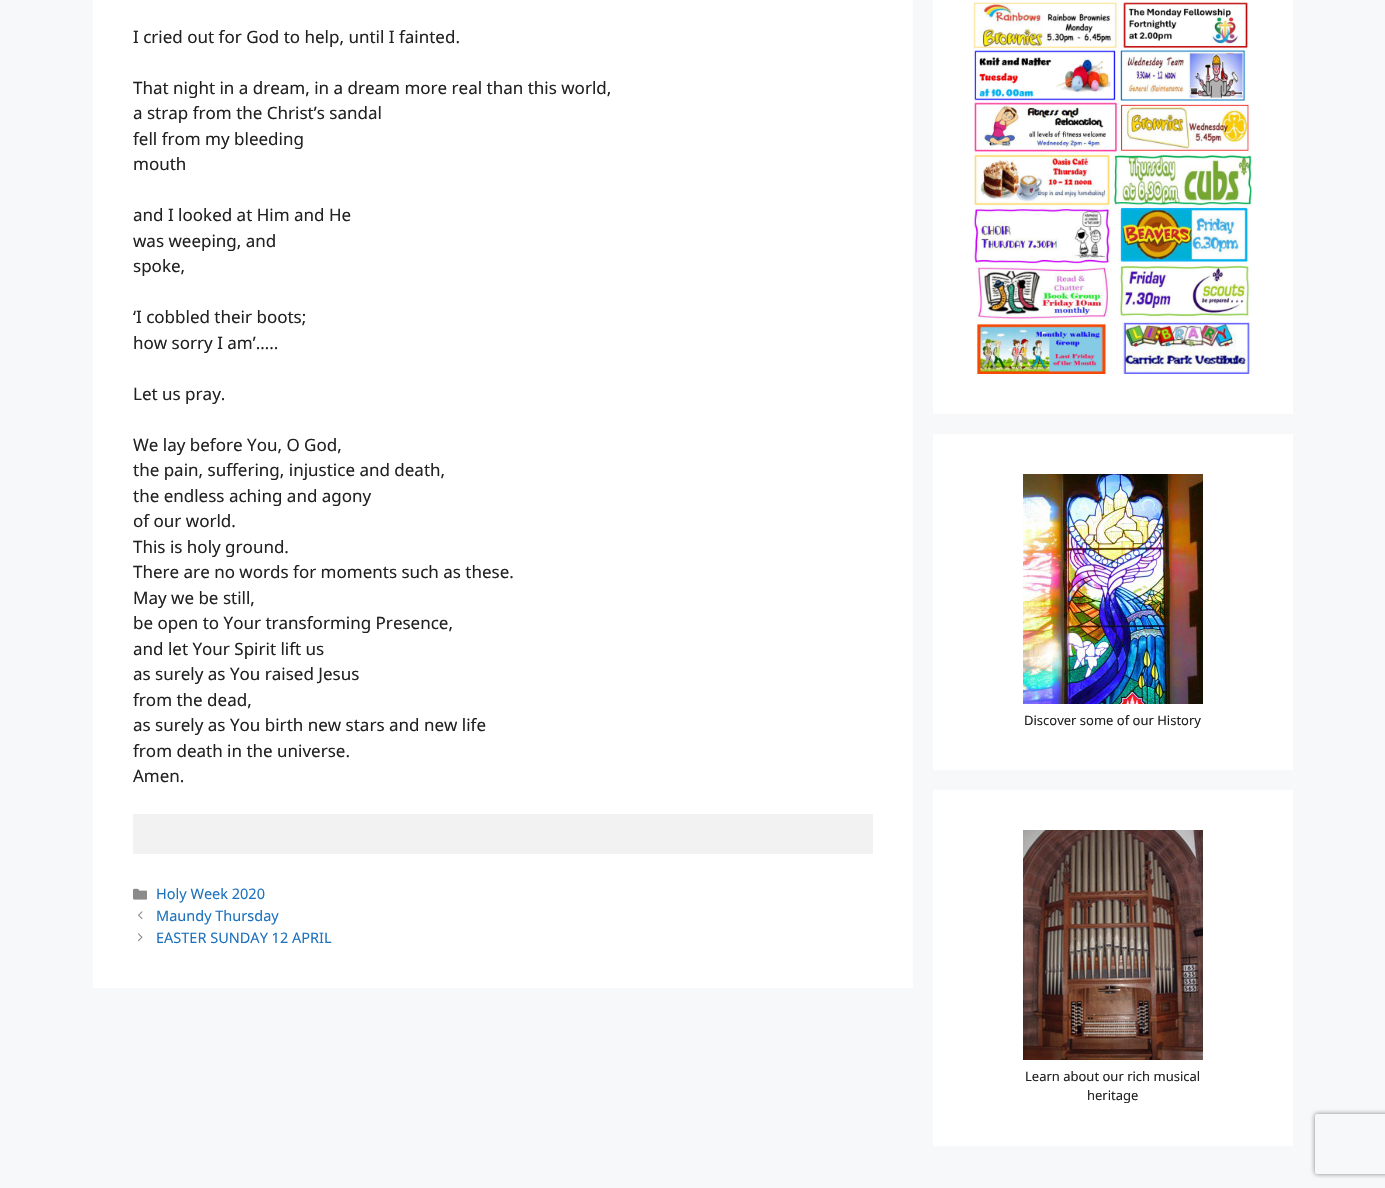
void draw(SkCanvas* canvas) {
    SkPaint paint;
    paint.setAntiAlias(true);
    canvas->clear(0xFFF7F8F9);
    paint.setColor(0xFFFFFFFF);
    canvas->drawRect(SkRect::MakeXYWH(93, 0, 820, 988), paint);
    SkFont font1(fontMgr->matchFamilyStyle("Noto Sans", SkFontStyle::Normal()), 17);
    font1.setSubpixel(true);
    paint.setColor(0xFF222222);
    canvas->drawString("I cried out for God to help, until I fainted.", 133, 43, font1, paint);
    canvas->drawString("That night in a dream, in a dream more real than this world,", 133, 94, font1, paint);
    canvas->drawString("a strap from the Christ’s sandal", 133, 119, font1, paint);
    canvas->drawString("fell from my bleeding", 133, 145, font1, paint);
    canvas->drawString("mouth", 133, 170, font1, paint);
    canvas->drawString("and I looked at Him and He", 133, 221, font1, paint);
    canvas->drawString("was weeping, and", 133, 247, font1, paint);
    canvas->drawString("spoke,", 133, 272, font1, paint);
    canvas->drawString("‘I cobbled their boots;", 133, 323, font1, paint);
    canvas->drawString("how sorry I am’…..", 133, 349, font1, paint);
    canvas->drawString("Let us pray.", 133, 400, font1, paint);
    canvas->drawString("We lay before You, O God,", 133, 451, font1, paint);
    canvas->drawString("the pain, suffering, injustice and death,", 133, 476, font1, paint);
    canvas->drawString("the endless aching and agony", 133, 502, font1, paint);
    canvas->drawString("of our world.", 133, 527, font1, paint);
    canvas->drawString("This is holy ground.", 133, 553, font1, paint);
    canvas->drawString("There are no words for moments such as these.", 133, 578, font1, paint);
    canvas->drawString("May we be still,", 133, 604, font1, paint);
    canvas->drawString("be open to Your transforming Presence,", 133, 629, font1, paint);
    canvas->drawString("and let Your Spirit lift us", 133, 655, font1, paint);
    canvas->drawString("as surely as You raised Jesus", 133, 680, font1, paint);
    canvas->drawString("from the dead,", 133, 706, font1, paint);
    canvas->drawString("as surely as You birth new stars and new life", 133, 731, font1, paint);
    canvas->drawString("from death in the universe.", 133, 757, font1, paint);
    canvas->drawString("Amen.", 133, 782, font1, paint);
    paint.setColor(0xFFF2F2F2);
    canvas->drawRect(SkRect::MakeXYWH(133, 814, 740, 40), paint);
    canvas->drawImageRect(SkImages::DeferredFromEncodedData(SkData::MakeFromFileName("img1.png")), SkRect::MakeXYWH(133, 888, 14, 12), SkSamplingOptions());
    SkFont font2(fontMgr->matchFamilyStyle("Noto Sans", SkFontStyle::Normal()), 14.5f);
    font2.setSubpixel(true);
    paint.setColor(0xFF1E73BE);
    canvas->drawString("Holy Week 2020", 156, 899, font2, paint);
    canvas->drawImageRect(SkImages::DeferredFromEncodedData(SkData::MakeFromFileName("img2.png")), SkRect::MakeXYWH(138, 911, 5, 9), SkSamplingOptions());
    canvas->drawString("Maundy Thursday", 156, 921, font2, paint);
    canvas->drawImageRect(SkImages::DeferredFromEncodedData(SkData::MakeFromFileName("img3.png")), SkRect::MakeXYWH(138, 933, 5, 9), SkSamplingOptions());
    canvas->drawString("EASTER SUNDAY 12 APRIL", 156, 943, font2, paint);
    paint.setColor(0xFFFFFFFF);
    canvas->drawRect(SkRect::MakeXYWH(933, 0, 360, 414), paint);
    canvas->drawImageRect(SkImages::DeferredFromEncodedData(SkData::MakeFromFileName("img4.png")), SkRect::MakeXYWH(973, 2, 279, 372), SkSamplingOptions());
    canvas->drawRect(SkRect::MakeXYWH(933, 434, 360, 336), paint);
    canvas->drawImageRect(SkImages::DeferredFromEncodedData(SkData::MakeFromFileName("img5.png")), SkRect::MakeXYWH(1023, 474, 180, 230), SkSamplingOptions());
    SkFont font3(fontMgr->matchFamilyStyle("Noto Sans", SkFontStyle::Normal()), 13);
    font3.setSubpixel(true);
    paint.setColor(0xFF222222);
    canvas->drawString("Discover some of our History", 1024, 725, font3, paint);
    paint.setColor(0xFFFFFFFF);
    canvas->drawRect(SkRect::MakeXYWH(933, 790, 360, 356), paint);
    canvas->drawImageRect(SkImages::DeferredFromEncodedData(SkData::MakeFromFileName("img6.png")), SkRect::MakeXYWH(1023, 830, 180, 230), SkSamplingOptions());
    paint.setColor(0xFF222222);
    canvas->drawString("Learn about our rich musical", 1025, 1081, font3, paint);
    canvas->drawString("heritage", 1087, 1100, font3, paint);
    canvas->save();
    canvas->clipPath(SkPathBuilder(SkPathFillType::kEvenOdd).moveTo(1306, 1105).lineTo(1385, 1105).lineTo(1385, 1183).lineTo(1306, 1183).close().moveTo(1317, 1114).lineTo(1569, 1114).cubicTo(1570, 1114, 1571, 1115, 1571, 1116).lineTo(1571, 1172).cubicTo(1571, 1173, 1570, 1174, 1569, 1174).lineTo(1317, 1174).cubicTo(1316, 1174, 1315, 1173, 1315, 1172).lineTo(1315, 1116).cubicTo(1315, 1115, 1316, 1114, 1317, 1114).close().detach(), true);
    paint.setColor(0xFF808080);
    paint.setMaskFilter(SkMaskFilter::MakeBlur(kNormal_SkBlurStyle, 2.5f));
    canvas->drawRoundRect(SkRect::MakeXYWH(1315, 1114, 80, 60), 2, 2, paint);
    paint.setMaskFilter(nullptr);
    canvas->restore();
}
